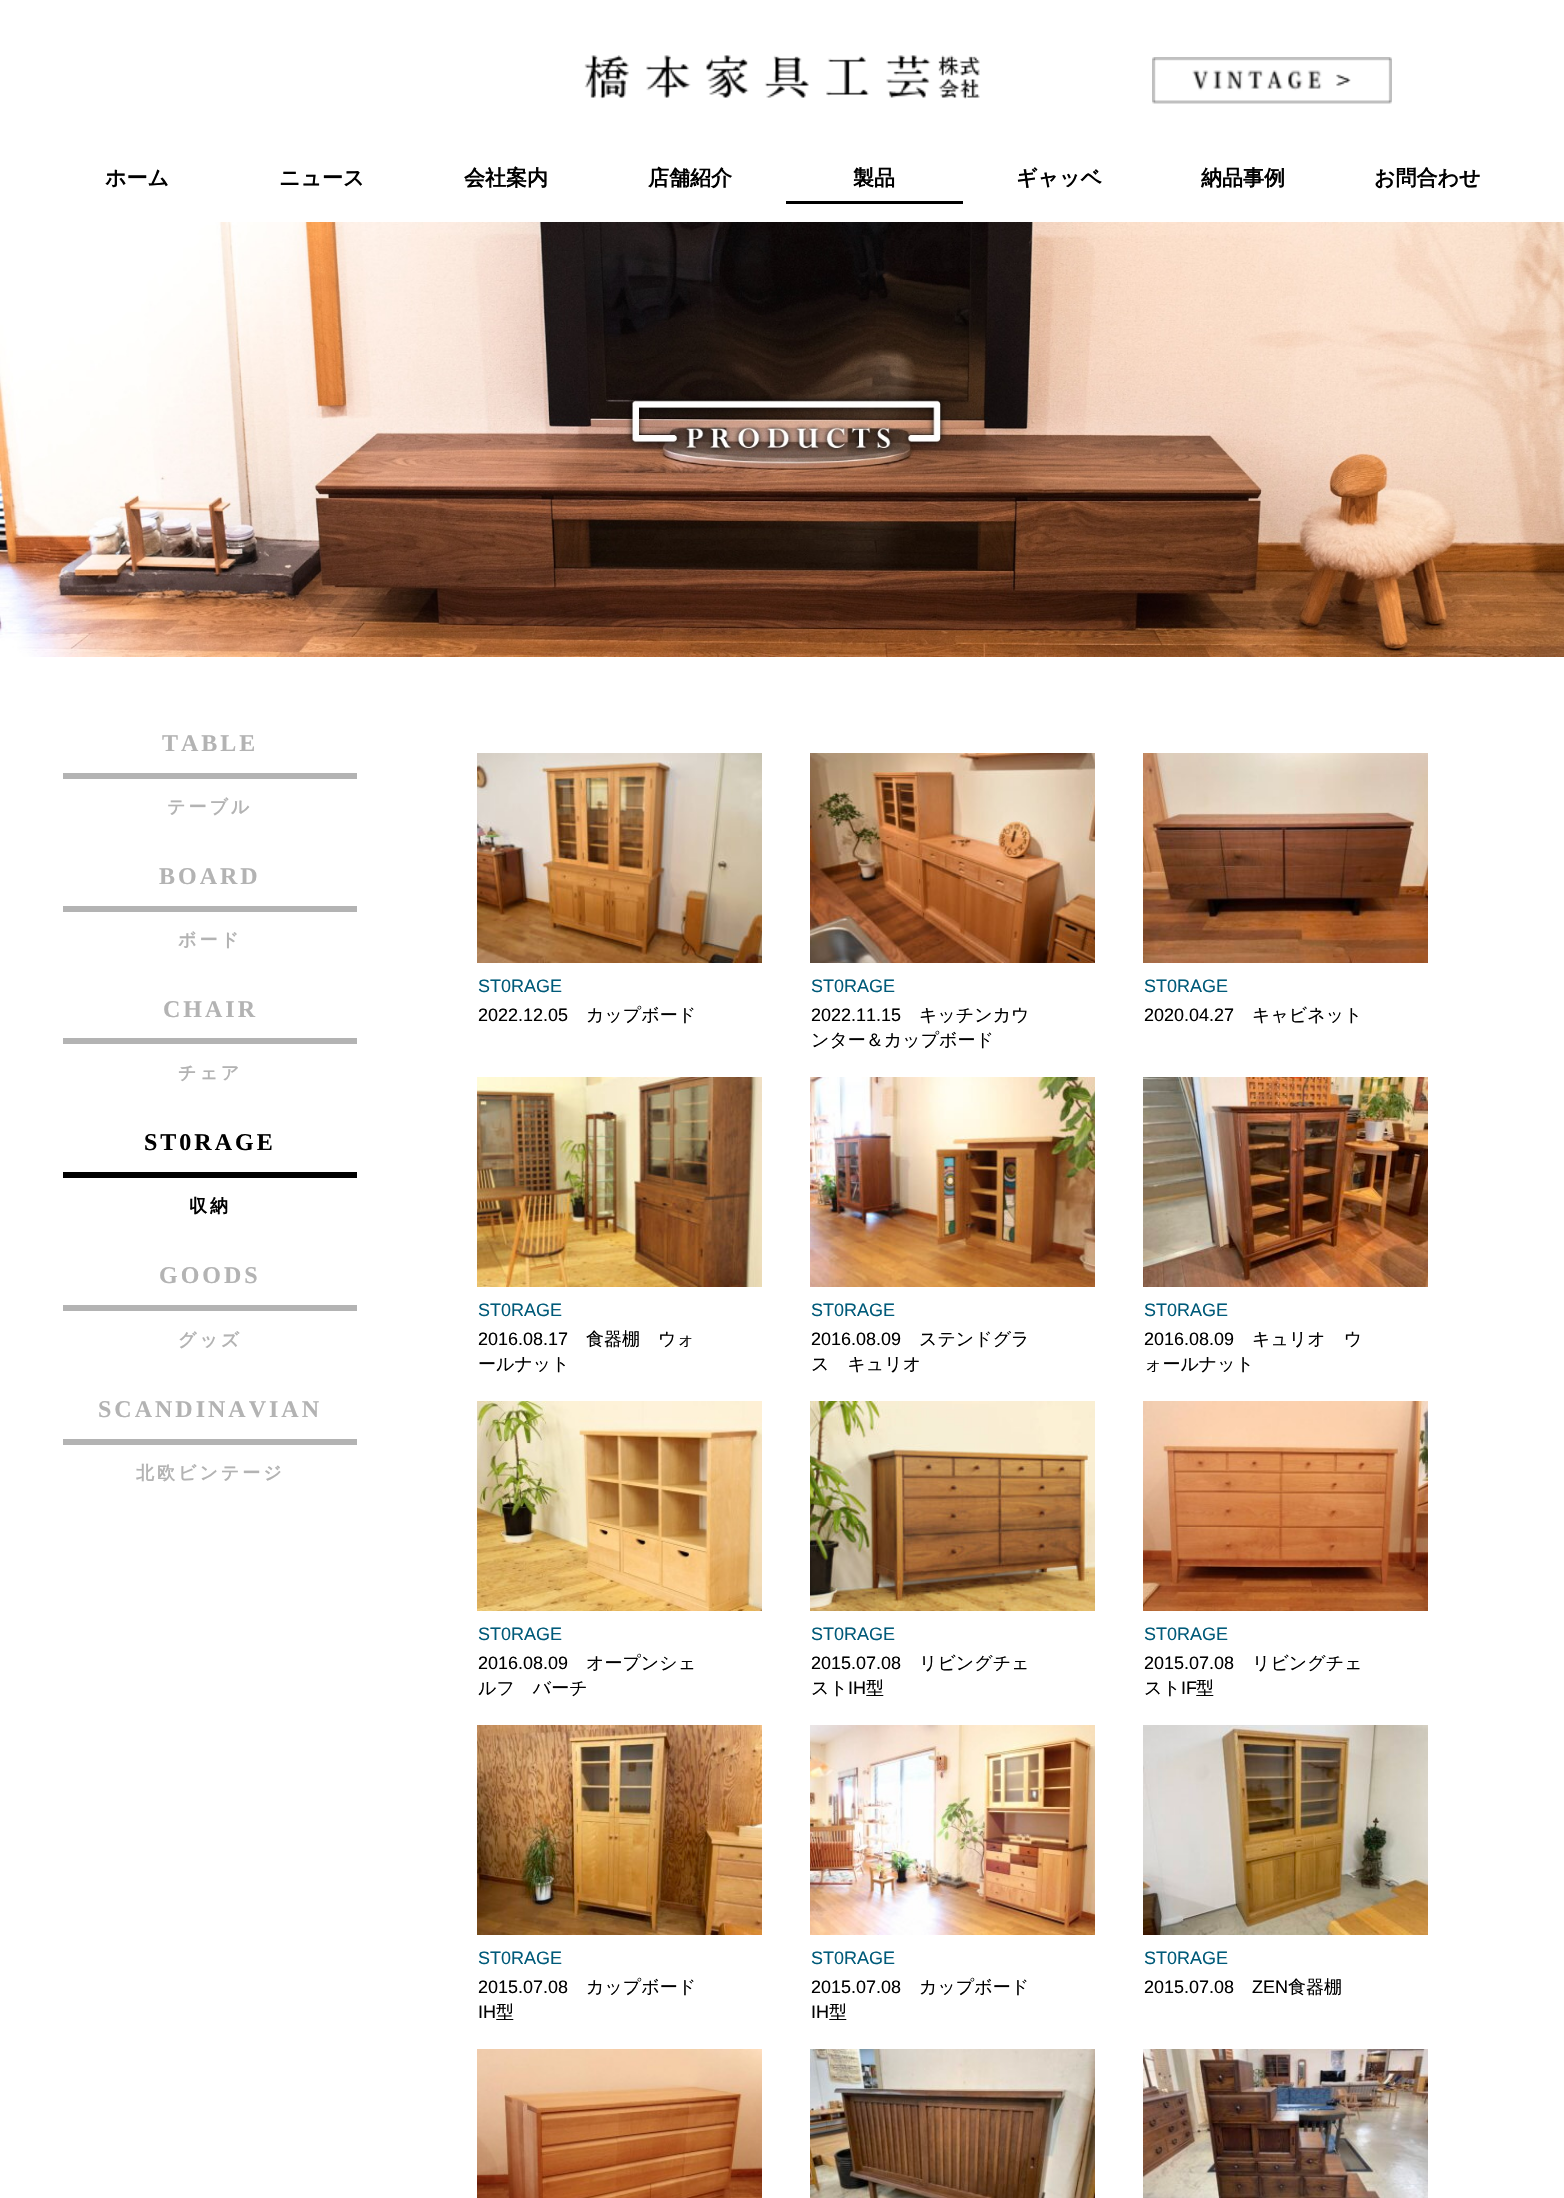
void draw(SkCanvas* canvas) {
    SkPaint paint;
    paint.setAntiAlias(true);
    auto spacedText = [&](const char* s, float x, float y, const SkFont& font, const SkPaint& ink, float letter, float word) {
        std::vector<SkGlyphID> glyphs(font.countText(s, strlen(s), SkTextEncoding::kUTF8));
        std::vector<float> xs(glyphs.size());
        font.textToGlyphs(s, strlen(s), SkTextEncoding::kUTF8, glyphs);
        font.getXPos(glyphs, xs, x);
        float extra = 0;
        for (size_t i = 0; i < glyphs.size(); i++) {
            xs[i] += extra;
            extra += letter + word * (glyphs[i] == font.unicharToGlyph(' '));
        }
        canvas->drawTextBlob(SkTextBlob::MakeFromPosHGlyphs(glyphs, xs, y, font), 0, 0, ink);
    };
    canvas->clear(0xFFFFFFFF);
    canvas->drawImageRect(SkImages::DeferredFromEncodedData(SkData::MakeFromFileName("img1.png")), SkRect::MakeXYWH(584, 55, 396, 44), SkSamplingOptions());
    canvas->drawImageRect(SkImages::DeferredFromEncodedData(SkData::MakeFromFileName("img2.png")), SkRect::MakeXYWH(1152, 57, 240, 47), SkSamplingOptions());
    SkFont font1(fontMgr->matchFamilyStyle("WenQuanYi Zen Hei", SkFontStyle::Bold()), 21);
    font1.setSubpixel(true);
    paint.setColor(0xFF000000);
    canvas->drawString("ホーム", 105, 185, font1, paint);
    canvas->drawString("ニュース", 279, 185, font1, paint);
    canvas->drawString("会社案内", 464, 185, font1, paint);
    canvas->drawString("店舗紹介", 648, 185, font1, paint);
    canvas->drawRect(SkRect::MakeXYWH(786, 201, 177, 3), paint);
    canvas->drawString("製品", 853, 185, font1, paint);
    canvas->drawString("ギャッベ", 1016, 185, font1, paint);
    canvas->drawString("納品事例", 1201, 185, font1, paint);
    canvas->drawString("お問合わせ", 1374, 185, font1, paint);
    canvas->drawImageRect(SkImages::DeferredFromEncodedData(SkData::MakeFromFileName("img3.png")), SkRect::MakeXYWH(0, 222, 1564, 435), SkSamplingOptions());
    paint.setColor(0xFFB3B3B3);
    canvas->drawRect(SkRect::MakeXYWH(63, 773, 294, 6), paint);
    SkFont font2(fontMgr->matchFamilyStyle("Liberation Serif", SkFontStyle::Bold()), 24);
    font2.setSubpixel(true);
    spacedText("TABLE", 162, 751, font2, paint, 3, 0);
    SkFont font3(fontMgr->matchFamilyStyle("WenQuanYi Zen Hei", SkFontStyle::Bold()), 18);
    font3.setSubpixel(true);
    spacedText("テーブル", 167, 813, font3, paint, 3, 0);
    canvas->drawRect(SkRect::MakeXYWH(63, 906, 294, 6), paint);
    spacedText("BOARD", 159, 884, font2, paint, 3, 0);
    spacedText("ボード", 178, 946, font3, paint, 3, 0);
    canvas->drawRect(SkRect::MakeXYWH(63, 1038, 294, 6), paint);
    spacedText("CHAIR", 163, 1017, font2, paint, 3, 0);
    spacedText("チェア", 178, 1079, font3, paint, 3, 0);
    paint.setColor(0xFF000000);
    canvas->drawRect(SkRect::MakeXYWH(63, 1172, 294, 6), paint);
    spacedText("ST0RAGE", 144, 1150, font2, paint, 3, 0);
    spacedText("収納", 189, 1212, font3, paint, 3, 0);
    paint.setColor(0xFFB3B3B3);
    canvas->drawRect(SkRect::MakeXYWH(63, 1305, 294, 6), paint);
    spacedText("GOODS", 159, 1283, font2, paint, 3, 0);
    spacedText("グッズ", 178, 1346, font3, paint, 3, 0);
    canvas->drawRect(SkRect::MakeXYWH(63, 1439, 294, 6), paint);
    spacedText("SCANDINAVIAN", 98, 1417, font2, paint, 3, 0);
    spacedText("北欧ビンテージ", 136, 1479, font3, paint, 3, 0);
    canvas->drawImageRect(SkImages::DeferredFromEncodedData(SkData::MakeFromFileName("img4.png")), SkRect::MakeXYWH(477, 753, 285, 210), SkSamplingOptions());
    SkFont font4(fontMgr->matchFamilyStyle("Liberation Sans", SkFontStyle::Normal()), 18);
    font4.setSubpixel(true);
    paint.setColor(0xFF005A79);
    canvas->drawString("ST0RAGE", 478, 992, font4, paint);
    paint.setColor(0xFF000000);
    canvas->drawString("2022.12.05", 478, 1021, font4, paint);
    SkFont font5(fontMgr->matchFamilyStyle("WenQuanYi Zen Hei", SkFontStyle(500, SkFontStyle::kNormal_Width, SkFontStyle::kUpright_Slant)), 18);
    font5.setSubpixel(true);
    canvas->drawString("カップボード", 586, 1021, font5, paint);
    canvas->drawImageRect(SkImages::DeferredFromEncodedData(SkData::MakeFromFileName("img5.png")), SkRect::MakeXYWH(810, 753, 285, 210), SkSamplingOptions());
    paint.setColor(0xFF005A79);
    canvas->drawString("ST0RAGE", 811, 992, font4, paint);
    paint.setColor(0xFF000000);
    canvas->drawString("2022.11.15", 811, 1021, font4, paint);
    canvas->drawString("キッチンカウ", 919, 1021, font5, paint);
    canvas->drawString("ンター＆カップボード", 811, 1046, font5, paint);
    canvas->drawImageRect(SkImages::DeferredFromEncodedData(SkData::MakeFromFileName("img6.png")), SkRect::MakeXYWH(1143, 753, 285, 210), SkSamplingOptions());
    paint.setColor(0xFF005A79);
    canvas->drawString("ST0RAGE", 1144, 992, font4, paint);
    paint.setColor(0xFF000000);
    canvas->drawString("2020.04.27", 1144, 1021, font4, paint);
    canvas->drawString("キャビネット", 1252, 1021, font5, paint);
    canvas->drawImageRect(SkImages::DeferredFromEncodedData(SkData::MakeFromFileName("img7.png")), SkRect::MakeXYWH(477, 1077, 285, 210), SkSamplingOptions());
    paint.setColor(0xFF005A79);
    canvas->drawString("ST0RAGE", 478, 1316, font4, paint);
    paint.setColor(0xFF000000);
    canvas->drawString("2016.08.17", 478, 1345, font4, paint);
    canvas->drawString("食器棚　ウォ", 586, 1345, font5, paint);
    canvas->drawString("ールナット", 478, 1370, font5, paint);
    canvas->drawImageRect(SkImages::DeferredFromEncodedData(SkData::MakeFromFileName("img8.png")), SkRect::MakeXYWH(810, 1077, 285, 210), SkSamplingOptions());
    paint.setColor(0xFF005A79);
    canvas->drawString("ST0RAGE", 811, 1316, font4, paint);
    paint.setColor(0xFF000000);
    canvas->drawString("2016.08.09", 811, 1345, font4, paint);
    canvas->drawString("ステンドグラ", 919, 1345, font5, paint);
    canvas->drawString("ス　キュリオ", 811, 1370, font5, paint);
    canvas->drawImageRect(SkImages::DeferredFromEncodedData(SkData::MakeFromFileName("img9.png")), SkRect::MakeXYWH(1143, 1077, 285, 210), SkSamplingOptions());
    paint.setColor(0xFF005A79);
    canvas->drawString("ST0RAGE", 1144, 1316, font4, paint);
    paint.setColor(0xFF000000);
    canvas->drawString("2016.08.09", 1144, 1345, font4, paint);
    canvas->drawString("キュリオ　ウ", 1252, 1345, font5, paint);
    canvas->drawString("ォールナット", 1144, 1370, font5, paint);
    canvas->drawImageRect(SkImages::DeferredFromEncodedData(SkData::MakeFromFileName("img10.png")), SkRect::MakeXYWH(477, 1401, 285, 210), SkSamplingOptions());
    paint.setColor(0xFF005A79);
    canvas->drawString("ST0RAGE", 478, 1640, font4, paint);
    paint.setColor(0xFF000000);
    canvas->drawString("2016.08.09", 478, 1669, font4, paint);
    canvas->drawString("オープンシェ", 586, 1669, font5, paint);
    canvas->drawString("ルフ　バーチ", 478, 1694, font5, paint);
    canvas->drawImageRect(SkImages::DeferredFromEncodedData(SkData::MakeFromFileName("img11.png")), SkRect::MakeXYWH(810, 1401, 285, 210), SkSamplingOptions());
    paint.setColor(0xFF005A79);
    canvas->drawString("ST0RAGE", 811, 1640, font4, paint);
    paint.setColor(0xFF000000);
    canvas->drawString("2015.07.08", 811, 1669, font4, paint);
    canvas->drawString("リビングチェ", 919, 1669, font5, paint);
    canvas->drawString("スト", 811, 1694, font5, paint);
    canvas->drawString("IH", 848, 1694, font4, paint);
    canvas->drawString("型", 866, 1694, font5, paint);
    canvas->drawImageRect(SkImages::DeferredFromEncodedData(SkData::MakeFromFileName("img12.png")), SkRect::MakeXYWH(1143, 1401, 285, 210), SkSamplingOptions());
    paint.setColor(0xFF005A79);
    canvas->drawString("ST0RAGE", 1144, 1640, font4, paint);
    paint.setColor(0xFF000000);
    canvas->drawString("2015.07.08", 1144, 1669, font4, paint);
    canvas->drawString("リビングチェ", 1252, 1669, font5, paint);
    canvas->drawString("スト", 1144, 1694, font5, paint);
    canvas->drawString("IF", 1181, 1694, font4, paint);
    canvas->drawString("型", 1196, 1694, font5, paint);
    canvas->drawImageRect(SkImages::DeferredFromEncodedData(SkData::MakeFromFileName("img13.png")), SkRect::MakeXYWH(477, 1725, 285, 210), SkSamplingOptions());
    paint.setColor(0xFF005A79);
    canvas->drawString("ST0RAGE", 478, 1964, font4, paint);
    paint.setColor(0xFF000000);
    canvas->drawString("2015.07.08", 478, 1993, font4, paint);
    canvas->drawString("カップボード", 586, 1993, font5, paint);
    canvas->drawString("IH", 478, 2018, font4, paint);
    canvas->drawString("型", 496, 2018, font5, paint);
    canvas->drawImageRect(SkImages::DeferredFromEncodedData(SkData::MakeFromFileName("img14.png")), SkRect::MakeXYWH(810, 1725, 285, 210), SkSamplingOptions());
    paint.setColor(0xFF005A79);
    canvas->drawString("ST0RAGE", 811, 1964, font4, paint);
    paint.setColor(0xFF000000);
    canvas->drawString("2015.07.08", 811, 1993, font4, paint);
    canvas->drawString("カップボード", 919, 1993, font5, paint);
    canvas->drawString("IH", 811, 2018, font4, paint);
    canvas->drawString("型", 829, 2018, font5, paint);
    canvas->drawImageRect(SkImages::DeferredFromEncodedData(SkData::MakeFromFileName("img15.png")), SkRect::MakeXYWH(1143, 1725, 285, 210), SkSamplingOptions());
    paint.setColor(0xFF005A79);
    canvas->drawString("ST0RAGE", 1144, 1964, font4, paint);
    paint.setColor(0xFF000000);
    canvas->drawString("2015.07.08", 1144, 1993, font4, paint);
    canvas->drawString("ZEN", 1252, 1993, font4, paint);
    canvas->drawString("食器棚", 1288, 1993, font5, paint);
    canvas->drawImageRect(SkImages::DeferredFromEncodedData(SkData::MakeFromFileName("img16.png")), SkRect::MakeXYWH(477, 2049, 285, 149), SkSamplingOptions());
    canvas->drawImageRect(SkImages::DeferredFromEncodedData(SkData::MakeFromFileName("img17.png")), SkRect::MakeXYWH(810, 2049, 285, 149), SkSamplingOptions());
    canvas->drawImageRect(SkImages::DeferredFromEncodedData(SkData::MakeFromFileName("img18.png")), SkRect::MakeXYWH(1143, 2049, 285, 149), SkSamplingOptions());
}
